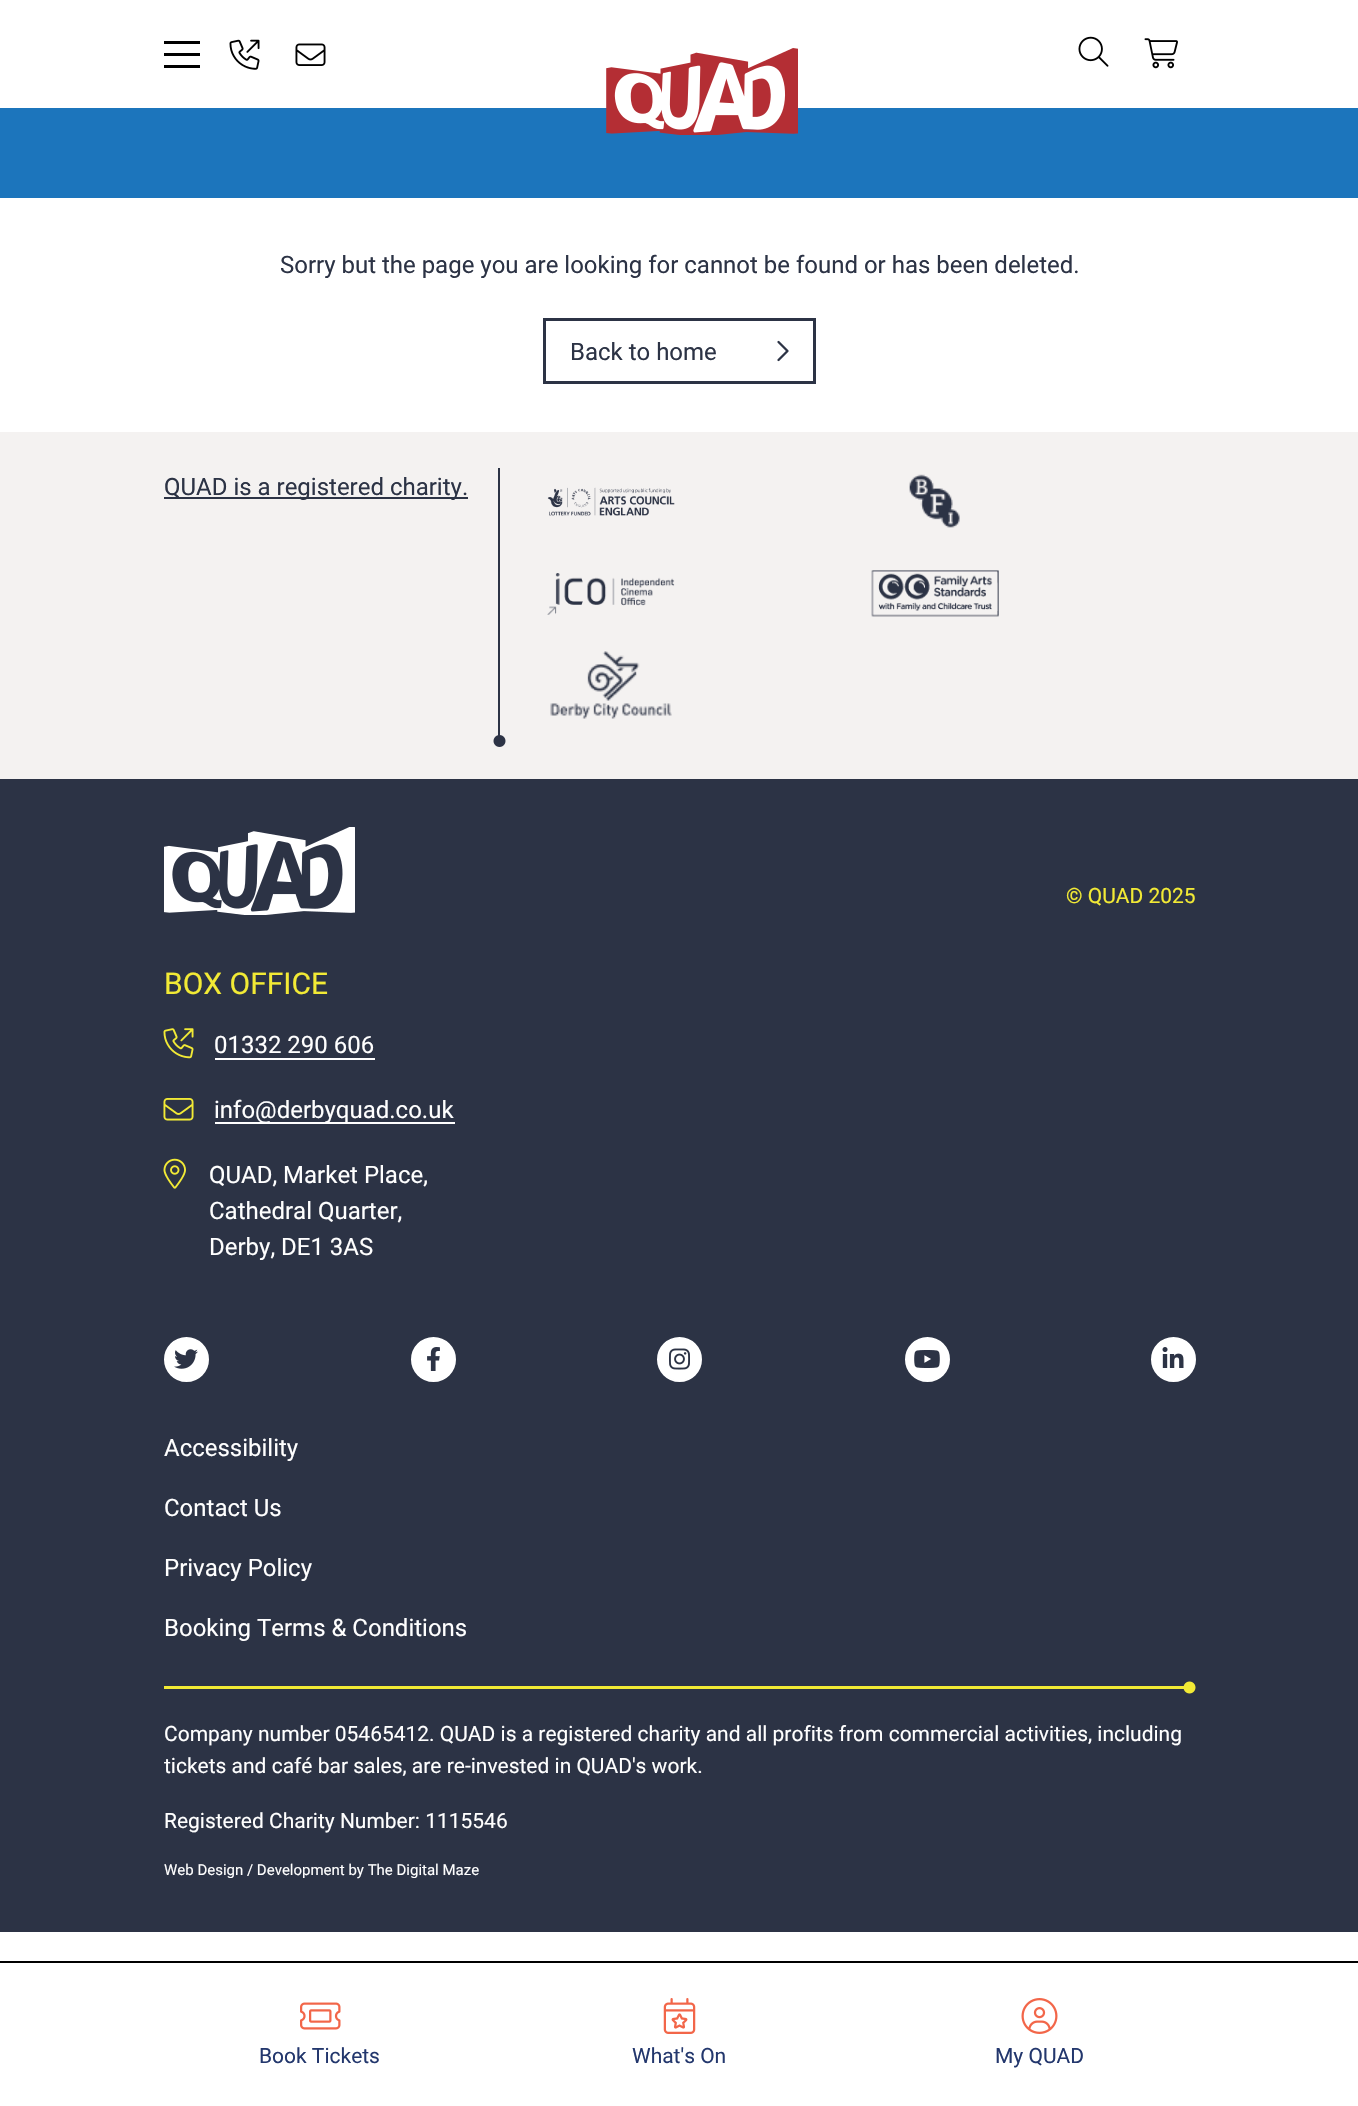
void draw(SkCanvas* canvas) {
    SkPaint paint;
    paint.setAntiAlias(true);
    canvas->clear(0xFFFFFFFF);
    paint.setColor(0xFF000000);
    canvas->drawRect(SkRect::MakeXYWH(164, 53, 36, 3), paint);
    canvas->drawRect(SkRect::MakeXYWH(164, 41, 36, 3), paint);
    canvas->drawRect(SkRect::MakeXYWH(164, 65, 36, 3), paint);
    canvas->drawImageRect(SkImages::DeferredFromEncodedData(SkData::MakeFromFileName("img1.png")), SkRect::MakeXYWH(229, 39, 31, 31), SkSamplingOptions());
    canvas->drawImageRect(SkImages::DeferredFromEncodedData(SkData::MakeFromFileName("img2.png")), SkRect::MakeXYWH(295, 43, 31, 23), SkSamplingOptions());
    paint.setColor(0xFF1C75BC);
    canvas->drawRect(SkRect::MakeXYWH(0, 108, 1358, 90), paint);
    canvas->drawImageRect(SkImages::DeferredFromEncodedData(SkData::MakeFromFileName("img3.png")), SkRect::MakeXYWH(606, 48, 192, 87), SkSamplingOptions());
    canvas->drawImageRect(SkImages::DeferredFromEncodedData(SkData::MakeFromFileName("img4.png")), SkRect::MakeXYWH(1078, 36, 31, 31), SkSamplingOptions());
    canvas->drawImageRect(SkImages::DeferredFromEncodedData(SkData::MakeFromFileName("img5.png")), SkRect::MakeXYWH(1144, 38, 34, 31), SkSamplingOptions());
    SkFont font1(fontMgr->matchFamilyStyle("Roboto", SkFontStyle::Normal()), 24);
    font1.setSubpixel(true);
    paint.setColor(0xFF2C3345);
    canvas->drawString("Sorry but the page you are looking for cannot be found or has been deleted.", 280, 273, font1, paint);
    paint.setStyle(SkPaint::kStroke_Style);
    paint.setStrokeWidth(3);
    canvas->drawRect(SkRect::MakeXYWH(544.5f, 319.5f, 270, 63), paint);
    paint.setStyle(SkPaint::kFill_Style);
    canvas->drawString("Back to home", 570, 360, font1, paint);
    canvas->drawImageRect(SkImages::DeferredFromEncodedData(SkData::MakeFromFileName("img6.png")), SkRect::MakeXYWH(777, 340, 12, 22), SkSamplingOptions());
    paint.setColor(0xFFF4F2F1);
    canvas->drawRect(SkRect::MakeXYWH(0, 432, 1358, 347), paint);
    paint.setColor(0xFF2C3345);
    canvas->drawRect(SkRect::MakeXYWH(498, 468, 2, 275), paint);
    canvas->drawRect(SkRect::MakeXYWH(164, 497, 304, 2), paint);
    canvas->drawString("QUAD is a registered charity.", 164, 495, font1, paint);
    canvas->drawImageRect(SkImages::DeferredFromEncodedData(SkData::MakeFromFileName("img7.png")), SkRect::MakeXYWH(493, 735, 13, 12), SkSamplingOptions());
    canvas->drawImageRect(SkImages::DeferredFromEncodedData(SkData::MakeFromFileName("img8.png")), SkRect::MakeXYWH(547, 487, 128, 29), SkSamplingOptions());
    canvas->drawImageRect(SkImages::DeferredFromEncodedData(SkData::MakeFromFileName("img9.png")), SkRect::MakeXYWH(909, 474, 51, 54), SkSamplingOptions());
    canvas->drawImageRect(SkImages::DeferredFromEncodedData(SkData::MakeFromFileName("img10.png")), SkRect::MakeXYWH(547, 573, 128, 42), SkSamplingOptions());
    canvas->drawImageRect(SkImages::DeferredFromEncodedData(SkData::MakeFromFileName("img11.png")), SkRect::MakeXYWH(871, 570, 128, 47), SkSamplingOptions());
    canvas->drawImageRect(SkImages::DeferredFromEncodedData(SkData::MakeFromFileName("img12.png")), SkRect::MakeXYWH(550, 651, 122, 68), SkSamplingOptions());
    canvas->drawRect(SkRect::MakeXYWH(0, 779, 1358, 1153), paint);
    canvas->drawImageRect(SkImages::DeferredFromEncodedData(SkData::MakeFromFileName("img13.png")), SkRect::MakeXYWH(164, 827, 191, 88), SkSamplingOptions());
    SkFont font2(fontMgr->matchFamilyStyle("Roboto", SkFontStyle::Normal()), 21);
    font2.setSubpixel(true);
    paint.setColor(0xFFF2EA35);
    canvas->drawString("© QUAD 2025", 1066, 903, font2, paint);
    SkFont font3(fontMgr->matchFamilyStyle("Roboto", SkFontStyle::Normal()), 30);
    font3.setSubpixel(true);
    canvas->drawString("BOX OFFICE", 164, 994, font3, paint);
    canvas->drawImageRect(SkImages::DeferredFromEncodedData(SkData::MakeFromFileName("img14.png")), SkRect::MakeXYWH(163, 1028, 31, 31), SkSamplingOptions());
    paint.setColor(0xFFFFFFFF);
    canvas->drawString("01332 290 606", 214, 1053, font1, paint);
    canvas->drawRect(SkRect::MakeXYWH(215, 1058, 160, 2), paint);
    canvas->drawImageRect(SkImages::DeferredFromEncodedData(SkData::MakeFromFileName("img15.png")), SkRect::MakeXYWH(163, 1098, 31, 23), SkSamplingOptions());
    canvas->drawString("info@derbyquad.co.uk", 214, 1118, font1, paint);
    canvas->drawRect(SkRect::MakeXYWH(215, 1122, 240, 2), paint);
    canvas->drawImageRect(SkImages::DeferredFromEncodedData(SkData::MakeFromFileName("img16.png")), SkRect::MakeXYWH(163, 1158, 23, 31), SkSamplingOptions());
    canvas->drawString("QUAD, Market Place,", 209, 1183, font1, paint);
    canvas->drawString("Cathedral Quarter,", 209, 1219, font1, paint);
    canvas->drawString("Derby, DE1 3AS", 209, 1255, font1, paint);
    canvas->drawCircle(186.5f, 1359.5f, 21.5f, paint);
    paint.setStyle(SkPaint::kStroke_Style);
    paint.setStrokeWidth(2);
    canvas->drawCircle(186.5f, 1359.5f, 21.5f, paint);
    canvas->drawImageRect(SkImages::DeferredFromEncodedData(SkData::MakeFromFileName("img17.png")), SkRect::MakeXYWH(174, 1349, 24, 20), SkSamplingOptions());
    paint.setStyle(SkPaint::kFill_Style);
    canvas->drawCircle(433.5f, 1359.5f, 21.5f, paint);
    paint.setStyle(SkPaint::kStroke_Style);
    canvas->drawCircle(433.5f, 1359.5f, 21.5f, paint);
    canvas->drawImageRect(SkImages::DeferredFromEncodedData(SkData::MakeFromFileName("img18.png")), SkRect::MakeXYWH(427, 1347, 13, 24), SkSamplingOptions());
    paint.setStyle(SkPaint::kFill_Style);
    canvas->drawCircle(679.5f, 1359.5f, 21.5f, paint);
    paint.setStyle(SkPaint::kStroke_Style);
    canvas->drawCircle(679.5f, 1359.5f, 21.5f, paint);
    canvas->drawImageRect(SkImages::DeferredFromEncodedData(SkData::MakeFromFileName("img19.png")), SkRect::MakeXYWH(669, 1348, 21, 22), SkSamplingOptions());
    paint.setStyle(SkPaint::kFill_Style);
    canvas->drawCircle(927.5f, 1359.5f, 21.5f, paint);
    paint.setStyle(SkPaint::kStroke_Style);
    canvas->drawCircle(927.5f, 1359.5f, 21.5f, paint);
    canvas->drawImageRect(SkImages::DeferredFromEncodedData(SkData::MakeFromFileName("img20.png")), SkRect::MakeXYWH(914, 1350, 26, 18), SkSamplingOptions());
    paint.setStyle(SkPaint::kFill_Style);
    canvas->drawCircle(1173.5f, 1359.5f, 21.5f, paint);
    paint.setStyle(SkPaint::kStroke_Style);
    canvas->drawCircle(1173.5f, 1359.5f, 21.5f, paint);
    canvas->drawImageRect(SkImages::DeferredFromEncodedData(SkData::MakeFromFileName("img21.png")), SkRect::MakeXYWH(1162, 1347, 22, 21), SkSamplingOptions());
    paint.setStyle(SkPaint::kFill_Style);
    canvas->drawString("Accessibility", 164, 1456, font1, paint);
    canvas->drawString("Contact Us", 164, 1516, font1, paint);
    canvas->drawString("Privacy Policy", 164, 1576, font1, paint);
    canvas->drawString("Booking Terms & Conditions", 164, 1636, font1, paint);
    paint.setColor(0xFFF2EA35);
    canvas->drawRect(SkRect::MakeXYWH(164, 1686, 1020, 3), paint);
    canvas->drawImageRect(SkImages::DeferredFromEncodedData(SkData::MakeFromFileName("img22.png")), SkRect::MakeXYWH(1183, 1681, 13, 13), SkSamplingOptions());
    paint.setColor(0xFFFFFFFF);
    canvas->drawString("Company number 05465412. QUAD is a registered charity and all profits from commercial activities, including", 164, 1741, font2, paint);
    canvas->drawString("tickets and café bar sales, are re-invested in QUAD's work.", 164, 1773, font2, paint);
    canvas->drawString("Registered Charity Number: 1115546", 164, 1828, font2, paint);
    SkFont font4(fontMgr->matchFamilyStyle("Roboto", SkFontStyle::Normal()), 15);
    font4.setSubpixel(true);
    canvas->drawString("Web Design / Development by The Digital Maze", 164, 1875, font4, paint);
    paint.setColor(0xFF000000);
    canvas->drawRect(SkRect::MakeXYWH(0, 1961, 1358, 2), paint);
    canvas->drawImageRect(SkImages::DeferredFromEncodedData(SkData::MakeFromFileName("img23.png")), SkRect::MakeXYWH(300, 2002, 41, 28), SkSamplingOptions());
    paint.setColor(0xFF23376D);
    canvas->drawString("Book Tickets", 259, 2063, font2, paint);
    canvas->drawImageRect(SkImages::DeferredFromEncodedData(SkData::MakeFromFileName("img24.png")), SkRect::MakeXYWH(663, 1998, 33, 36), SkSamplingOptions());
    canvas->drawString("What's On", 632, 2063, font2, paint);
    canvas->drawImageRect(SkImages::DeferredFromEncodedData(SkData::MakeFromFileName("img25.png")), SkRect::MakeXYWH(1021, 1998, 37, 36), SkSamplingOptions());
    canvas->drawString("My QUAD", 995, 2063, font2, paint);
}
